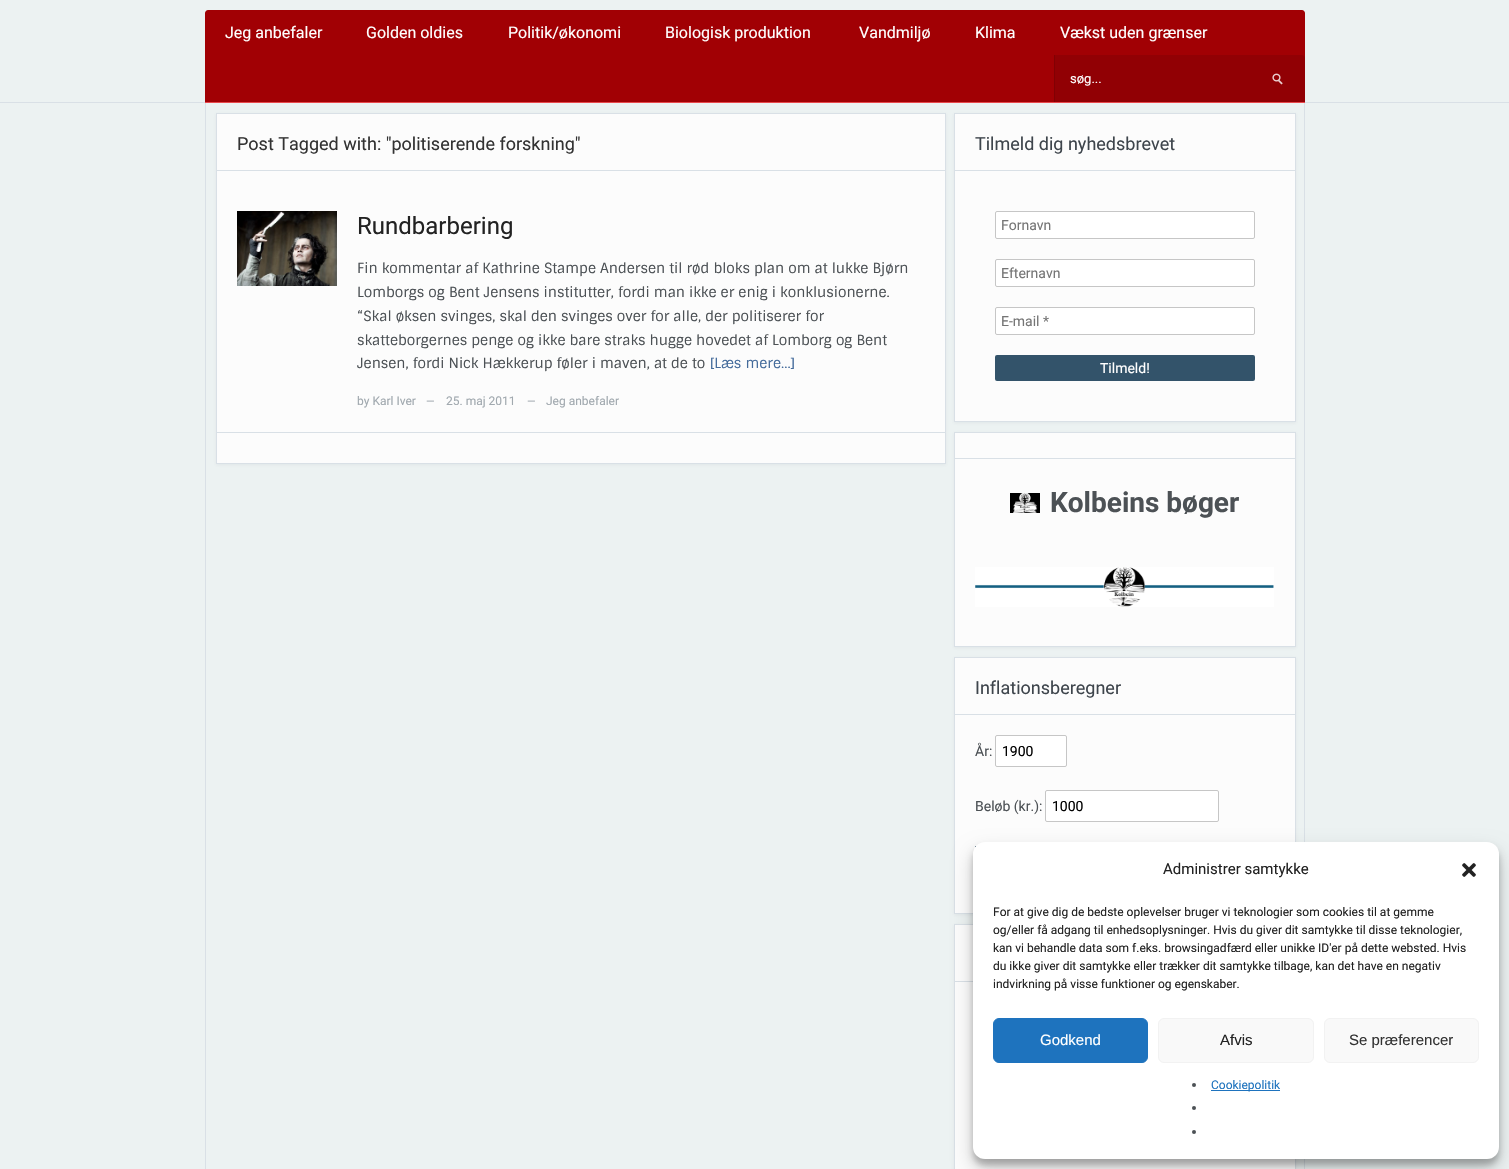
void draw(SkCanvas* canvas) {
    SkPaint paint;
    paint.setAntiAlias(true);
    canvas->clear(0xFFECF2F2);
    paint.setColor(0xFFD9E0E6);
    canvas->drawRect(SkRect::MakeXYWH(0, 102, 1509, 1), paint);
    paint.setColor(0xFFA10004);
    canvas->drawPath(SkPathBuilder().moveTo(208, 10).lineTo(1302, 10).cubicTo(1303.5f, 10, 1305, 11.5f, 1305, 13).lineTo(1305, 103).lineTo(205, 103).lineTo(205, 13).cubicTo(205, 11.5f, 206.5f, 10, 208, 10).close().detach(), paint);
    paint.setColor(0xFFE9484C);
    canvas->drawRect(SkRect::MakeXYWH(205, 102, 1100, 1), paint);
    SkFont font1(fontMgr->matchFamilyStyle("Roboto", SkFontStyle::Normal()), 16);
    font1.setSubpixel(true);
    paint.setColor(0xFFFFFFFF);
    canvas->drawString("Jeg anbefaler", 225, 38, font1, paint);
    canvas->drawString("Golden oldies", 366, 38, font1, paint);
    canvas->drawString("Politik/økonomi", 508, 38, font1, paint);
    canvas->drawString("Biologisk produktion", 665, 38, font1, paint);
    canvas->drawString("Vandmiljø", 859, 38, font1, paint);
    canvas->drawString("Klima", 975, 38, font1, paint);
    canvas->drawString("Vækst uden grænser", 1060, 38, font1, paint);
    paint.setColor(0xFF810003);
    canvas->drawRect(SkRect::MakeXYWH(1054, 55, 1, 47), paint);
    paint.setColor(0xFF910004);
    canvas->drawPath(SkPathBuilder().moveTo(1055, 55).lineTo(1302, 55).cubicTo(1303.5f, 55, 1305, 56.5f, 1305, 58).lineTo(1305, 102).lineTo(1055, 102).close().detach(), paint);
    SkFont font2(fontMgr->matchFamilyStyle("Roboto", SkFontStyle::Normal()), 13);
    font2.setSubpixel(true);
    paint.setColor(0xFFFFFFFF);
    canvas->drawString("søg...", 1070, 83, font2, paint);
    canvas->drawImageRect(SkImages::DeferredFromEncodedData(SkData::MakeFromFileName("img1.png")), SkRect::MakeXYWH(1272, 73, 11, 12), SkSamplingOptions());
    paint.setColor(0xFFD9E0E6);
    canvas->drawPath(SkPathBuilder(SkPathFillType::kEvenOdd).moveTo(205, 103).lineTo(1305, 103).lineTo(1305, 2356).cubicTo(1305, 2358, 1304, 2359, 1302, 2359).lineTo(208, 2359).cubicTo(206, 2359, 205, 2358, 205, 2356).close().moveTo(206, 103).lineTo(1304, 103).lineTo(1304, 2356).cubicTo(1304, 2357, 1303, 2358, 1302, 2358).lineTo(208, 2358).cubicTo(207, 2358, 206, 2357, 206, 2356).close().detach(), paint);
    paint.setColor(0x144A5F74);
    paint.setMaskFilter(SkMaskFilter::MakeBlur(kNormal_SkBlurStyle, 1.5f));
    canvas->drawRect(SkRect::MakeXYWH(216, 114, 730, 351), paint);
    paint.setMaskFilter(nullptr);
    paint.setColor(0xFFFCFCFC);
    canvas->drawRect(SkRect::MakeXYWH(216.5f, 113.5f, 729, 350), paint);
    paint.setStyle(SkPaint::kStroke_Style);
    paint.setStrokeWidth(1);
    paint.setColor(0xFFD9E0E6);
    canvas->drawRect(SkRect::MakeXYWH(216.5f, 113.5f, 729, 350), paint);
    paint.setStyle(SkPaint::kFill_Style);
    canvas->drawRect(SkRect::MakeXYWH(217, 170, 728, 1), paint);
    SkFont font3(fontMgr->matchFamilyStyle("Roboto", SkFontStyle::Normal()), 18);
    font3.setSubpixel(true);
    paint.setColor(0xFF333333);
    canvas->drawString("Post Tagged with: \"politiserende forskning\"", 237, 150, font3, paint);
    paint.setColor(0xFFD9E0E6);
    canvas->drawRect(SkRect::MakeXYWH(217, 432, 728, 1), paint);
    canvas->drawImageRect(SkImages::DeferredFromEncodedData(SkData::MakeFromFileName("img2.png")), SkRect::MakeXYWH(237, 211, 100, 75), SkSamplingOptions());
    SkFont font4(fontMgr->matchFamilyStyle("Roboto", SkFontStyle::Normal()), 24);
    font4.setSubpixel(true);
    paint.setColor(0xFF222222);
    canvas->drawString("Rundbarbering", 357, 234, font4, paint);
    SkFont font5(fontMgr->matchFamilyStyle("Sintony", SkFontStyle::Normal()), 14);
    font5.setSubpixel(true);
    paint.setColor(0xFF4C5155);
    canvas->drawString("Fin kommentar af Kathrine Stampe Andersen til rød bloks plan om at lukke Bjørn", 357, 273, font5, paint);
    canvas->drawString("Lomborgs og Bent Jensens institutter, fordi man ikke er enig i konklusionerne.", 357, 297, font5, paint);
    canvas->drawString("“Skal øksen svinges, skal den svinges over for alle, der politiserer for", 357, 321, font5, paint);
    canvas->drawString("skatteborgernes penge og ikke bare straks hugge hovedet af Lomborg og Bent", 357, 345, font5, paint);
    canvas->drawString("Jensen, fordi Nick Hækkerup føler i maven, at de to", 357, 368, font5, paint);
    paint.setColor(0xFF446B9B);
    canvas->drawString("[Læs mere…]", 710, 368, font5, paint);
    SkFont font6(fontMgr->matchFamilyStyle("Roboto", SkFontStyle::Normal()), 12);
    font6.setSubpixel(true);
    paint.setColor(0xFFA1A9AF);
    canvas->drawString("by Karl Iver", 357, 405, font6, paint);
    SkFont font7(fontMgr->matchFamilyStyle("Roboto", SkFontStyle::Normal()), 11);
    font7.setSubpixel(true);
    canvas->drawString("—", 426, 405, font7, paint);
    canvas->drawString("25. maj 2011", 446, 405, font6, paint);
    canvas->drawString("—", 527, 405, font7, paint);
    canvas->drawString("Jeg anbefaler", 546, 405, font6, paint);
    paint.setColor(0x144A5F74);
    paint.setMaskFilter(SkMaskFilter::MakeBlur(kNormal_SkBlurStyle, 1.5f));
    canvas->drawRect(SkRect::MakeXYWH(954, 114, 342, 309), paint);
    paint.setMaskFilter(nullptr);
    paint.setColor(0xFFFCFCFC);
    canvas->drawRect(SkRect::MakeXYWH(954.5f, 113.5f, 341, 308), paint);
    paint.setStyle(SkPaint::kStroke_Style);
    paint.setColor(0xFFD9E0E6);
    canvas->drawRect(SkRect::MakeXYWH(954.5f, 113.5f, 341, 308), paint);
    paint.setStyle(SkPaint::kFill_Style);
    canvas->drawRect(SkRect::MakeXYWH(955, 170, 340, 1), paint);
    paint.setColor(0xFF3E454C);
    canvas->drawString("Tilmeld dig nyhedsbrevet", 975, 150, font3, paint);
    paint.setColor(0xFFFFFFFF);
    canvas->drawRoundRect(SkRect::MakeXYWH(995.5f, 211.5f, 259, 27), 1.5f, 1.5f, paint);
    paint.setStyle(SkPaint::kStroke_Style);
    paint.setColor(0xFFC6C6C6);
    canvas->drawRoundRect(SkRect::MakeXYWH(995.5f, 211.5f, 259, 27), 1.5f, 1.5f, paint);
    SkFont font8(fontMgr->matchFamilyStyle("Roboto", SkFontStyle::Normal()), 14);
    font8.setSubpixel(true);
    paint.setStyle(SkPaint::kFill_Style);
    paint.setColor(0xFF757575);
    canvas->drawString("Fornavn", 1001, 230, font8, paint);
    paint.setColor(0xFFFFFFFF);
    canvas->drawRoundRect(SkRect::MakeXYWH(995.5f, 259.5f, 259, 27), 1.5f, 1.5f, paint);
    paint.setStyle(SkPaint::kStroke_Style);
    paint.setColor(0xFFC6C6C6);
    canvas->drawRoundRect(SkRect::MakeXYWH(995.5f, 259.5f, 259, 27), 1.5f, 1.5f, paint);
    paint.setStyle(SkPaint::kFill_Style);
    paint.setColor(0xFF757575);
    canvas->drawString("Efternavn", 1001, 278, font8, paint);
    paint.setColor(0xFFFFFFFF);
    canvas->drawRoundRect(SkRect::MakeXYWH(995.5f, 307.5f, 259, 27), 1.5f, 1.5f, paint);
    paint.setStyle(SkPaint::kStroke_Style);
    paint.setColor(0xFFC6C6C6);
    canvas->drawRoundRect(SkRect::MakeXYWH(995.5f, 307.5f, 259, 27), 1.5f, 1.5f, paint);
    paint.setStyle(SkPaint::kFill_Style);
    paint.setColor(0xFF757575);
    canvas->drawString("E-mail *", 1001, 326, font8, paint);
    paint.setColor(0xFF33536A);
    canvas->drawRoundRect(SkRect::MakeXYWH(995, 355, 260, 26), 2, 2, paint);
    paint.setColor(0xFFFFFFFF);
    canvas->drawString("Tilmeld!", 1100, 373, font8, paint);
    paint.setColor(0x144A5F74);
    paint.setMaskFilter(SkMaskFilter::MakeBlur(kNormal_SkBlurStyle, 1.5f));
    canvas->drawRect(SkRect::MakeXYWH(954, 433, 342, 215), paint);
    paint.setMaskFilter(nullptr);
    paint.setColor(0xFFFCFCFC);
    canvas->drawRect(SkRect::MakeXYWH(954.5f, 432.5f, 341, 214), paint);
    paint.setStyle(SkPaint::kStroke_Style);
    paint.setColor(0xFFD9E0E6);
    canvas->drawRect(SkRect::MakeXYWH(954.5f, 432.5f, 341, 214), paint);
    paint.setStyle(SkPaint::kFill_Style);
    canvas->drawRect(SkRect::MakeXYWH(955, 458, 340, 1), paint);
    canvas->drawImageRect(SkImages::DeferredFromEncodedData(SkData::MakeFromFileName("img3.png")), SkRect::MakeXYWH(1010, 493, 30, 20), SkSamplingOptions());
    SkFont font9(fontMgr->matchFamilyStyle("Roboto", SkFontStyle::Bold()), 28);
    font9.setSubpixel(true);
    paint.setColor(0xFF4C5155);
    canvas->drawString("Kolbeins bøger", 1050, 512, font9, paint);
    canvas->drawImageRect(SkImages::DeferredFromEncodedData(SkData::MakeFromFileName("img4.png")), SkRect::MakeXYWH(975, 567, 299, 40), SkSamplingOptions());
    paint.setColor(0x144A5F74);
    paint.setMaskFilter(SkMaskFilter::MakeBlur(kNormal_SkBlurStyle, 1.5f));
    canvas->drawRect(SkRect::MakeXYWH(954, 658, 342, 257), paint);
    paint.setMaskFilter(nullptr);
    paint.setColor(0xFFFCFCFC);
    canvas->drawRect(SkRect::MakeXYWH(954.5f, 657.5f, 341, 256), paint);
    paint.setStyle(SkPaint::kStroke_Style);
    paint.setColor(0xFFD9E0E6);
    canvas->drawRect(SkRect::MakeXYWH(954.5f, 657.5f, 341, 256), paint);
    paint.setStyle(SkPaint::kFill_Style);
    canvas->drawRect(SkRect::MakeXYWH(955, 714, 340, 1), paint);
    paint.setColor(0xFF3E454C);
    canvas->drawString("Inflationsberegner", 975, 694, font3, paint);
    paint.setColor(0xFF4C5155);
    canvas->drawString("År:", 975, 756, font8, paint);
    paint.setColor(0xFFFFFFFF);
    canvas->drawRoundRect(SkRect::MakeXYWH(995.5f, 735.5f, 71, 31), 1.5f, 1.5f, paint);
    paint.setStyle(SkPaint::kStroke_Style);
    paint.setColor(0xFFC6C6C6);
    canvas->drawRoundRect(SkRect::MakeXYWH(995.5f, 735.5f, 71, 31), 1.5f, 1.5f, paint);
    paint.setStyle(SkPaint::kFill_Style);
    paint.setColor(0xFF000000);
    canvas->drawString("1900", 1002, 756, font8, paint);
    paint.setColor(0xFF4C5155);
    canvas->drawString("Beløb (kr.):", 975, 811, font8, paint);
    paint.setColor(0xFFFFFFFF);
    canvas->drawRoundRect(SkRect::MakeXYWH(1045.5f, 790.5f, 173, 31), 1.5f, 1.5f, paint);
    paint.setStyle(SkPaint::kStroke_Style);
    paint.setColor(0xFFC6C6C6);
    canvas->drawRoundRect(SkRect::MakeXYWH(1045.5f, 790.5f, 173, 31), 1.5f, 1.5f, paint);
    paint.setStyle(SkPaint::kFill_Style);
    paint.setColor(0xFF000000);
    canvas->drawString("1000", 1052, 811, font8, paint);
    paint.setColor(0xFF33536A);
    canvas->drawRect(SkRect::MakeXYWH(975, 846, 2, 2), paint);
    paint.setColor(0x144A5F74);
    paint.setMaskFilter(SkMaskFilter::MakeBlur(kNormal_SkBlurStyle, 1.5f));
    canvas->drawRect(SkRect::MakeXYWH(954, 925, 342, 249), paint);
    paint.setMaskFilter(nullptr);
    paint.setColor(0xFFFCFCFC);
    canvas->drawRect(SkRect::MakeXYWH(954.5f, 924.5f, 341, 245), paint);
    paint.setStyle(SkPaint::kStroke_Style);
    paint.setColor(0xFFD9E0E6);
    canvas->drawRect(SkRect::MakeXYWH(954.5f, 924.5f, 341, 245), paint);
    paint.setStyle(SkPaint::kFill_Style);
    canvas->drawRect(SkRect::MakeXYWH(955, 981, 18, 1), paint);
    paint.setColor(0x3B000000);
    paint.setMaskFilter(SkMaskFilter::MakeBlur(kNormal_SkBlurStyle, 3));
    canvas->drawRoundRect(SkRect::MakeXYWH(973, 848, 526, 317), 12, 12, paint);
    paint.setMaskFilter(nullptr);
    paint.setColor(0x30000000);
    paint.setMaskFilter(SkMaskFilter::MakeBlur(kNormal_SkBlurStyle, 10));
    canvas->drawRoundRect(SkRect::MakeXYWH(973, 852, 526, 317), 12, 12, paint);
    paint.setMaskFilter(nullptr);
    paint.setColor(0xFFFFFFFF);
    canvas->drawRoundRect(SkRect::MakeXYWH(973, 842, 526, 317), 12, 12, paint);
    SkFont font10(fontMgr->matchFamilyStyle("Roboto", SkFontStyle::Normal()), 15);
    font10.setSubpixel(true);
    paint.setColor(0xFF222222);
    canvas->drawString("Administrer samtykke", 1163, 874, font10, paint);
    canvas->drawImageRect(SkImages::DeferredFromEncodedData(SkData::MakeFromFileName("img5.png")), SkRect::MakeXYWH(1462, 863, 14, 14), SkSamplingOptions());
    canvas->drawString("For at give dig de bedste oplevelser bruger vi teknologier som cookies til at gemme", 993, 916, font6, paint);
    canvas->drawString("og/eller få adgang til enhedsoplysninger. Hvis du giver dit samtykke til disse teknologier,", 993, 934, font6, paint);
    canvas->drawString("kan vi behandle data som f.eks. browsingadfærd eller unikke ID'er på dette websted. Hvis", 993, 952, font6, paint);
    canvas->drawString("du ikke giver dit samtykke eller trækker dit samtykke tilbage, kan det have en negativ", 993, 970, font6, paint);
    canvas->drawString("indvirkning på visse funktioner og egenskaber.", 993, 988, font6, paint);
    paint.setColor(0xFF1E73BE);
    canvas->drawRoundRect(SkRect::MakeXYWH(993.5f, 1018.5f, 154, 44), 5.5f, 5.5f, paint);
    paint.setStyle(SkPaint::kStroke_Style);
    canvas->drawRoundRect(SkRect::MakeXYWH(993.5f, 1018.5f, 154, 44), 5.5f, 5.5f, paint);
    SkFont font11(fontMgr->matchFamilyStyle("Liberation Sans", SkFontStyle::Normal()), 15);
    font11.setSubpixel(true);
    paint.setStyle(SkPaint::kFill_Style);
    paint.setColor(0xFFFFFFFF);
    canvas->drawString("Godkend", 1040, 1045, font11, paint);
    paint.setColor(0xFFF9F9F9);
    canvas->drawRoundRect(SkRect::MakeXYWH(1158.5f, 1018.5f, 155, 44), 5.5f, 5.5f, paint);
    paint.setStyle(SkPaint::kStroke_Style);
    paint.setColor(0xFFF2F2F2);
    canvas->drawRoundRect(SkRect::MakeXYWH(1158.5f, 1018.5f, 155, 44), 5.5f, 5.5f, paint);
    paint.setStyle(SkPaint::kFill_Style);
    paint.setColor(0xFF222222);
    canvas->drawString("Afvis", 1220, 1045, font11, paint);
    paint.setColor(0xFFF9F9F9);
    canvas->drawRoundRect(SkRect::MakeXYWH(1324.5f, 1018.5f, 154, 44), 5.5f, 5.5f, paint);
    paint.setStyle(SkPaint::kStroke_Style);
    paint.setColor(0xFFF2F2F2);
    canvas->drawRoundRect(SkRect::MakeXYWH(1324.5f, 1018.5f, 154, 44), 5.5f, 5.5f, paint);
    paint.setStyle(SkPaint::kFill_Style);
    paint.setColor(0xFF333333);
    canvas->drawString("Se præferencer", 1349, 1045, font11, paint);
    paint.setColor(0xFF4C5155);
    canvas->drawCircle(1194, 1085, 2, paint);
    paint.setColor(0xFF1E73BE);
    canvas->drawRect(SkRect::MakeXYWH(1211, 1090, 69, 1), paint);
    canvas->drawString("Cookiepolitik", 1211, 1089, font6, paint);
    paint.setColor(0xFF4C5155);
    canvas->drawCircle(1194, 1108, 2, paint);
    canvas->drawCircle(1194, 1132, 2, paint);
}
